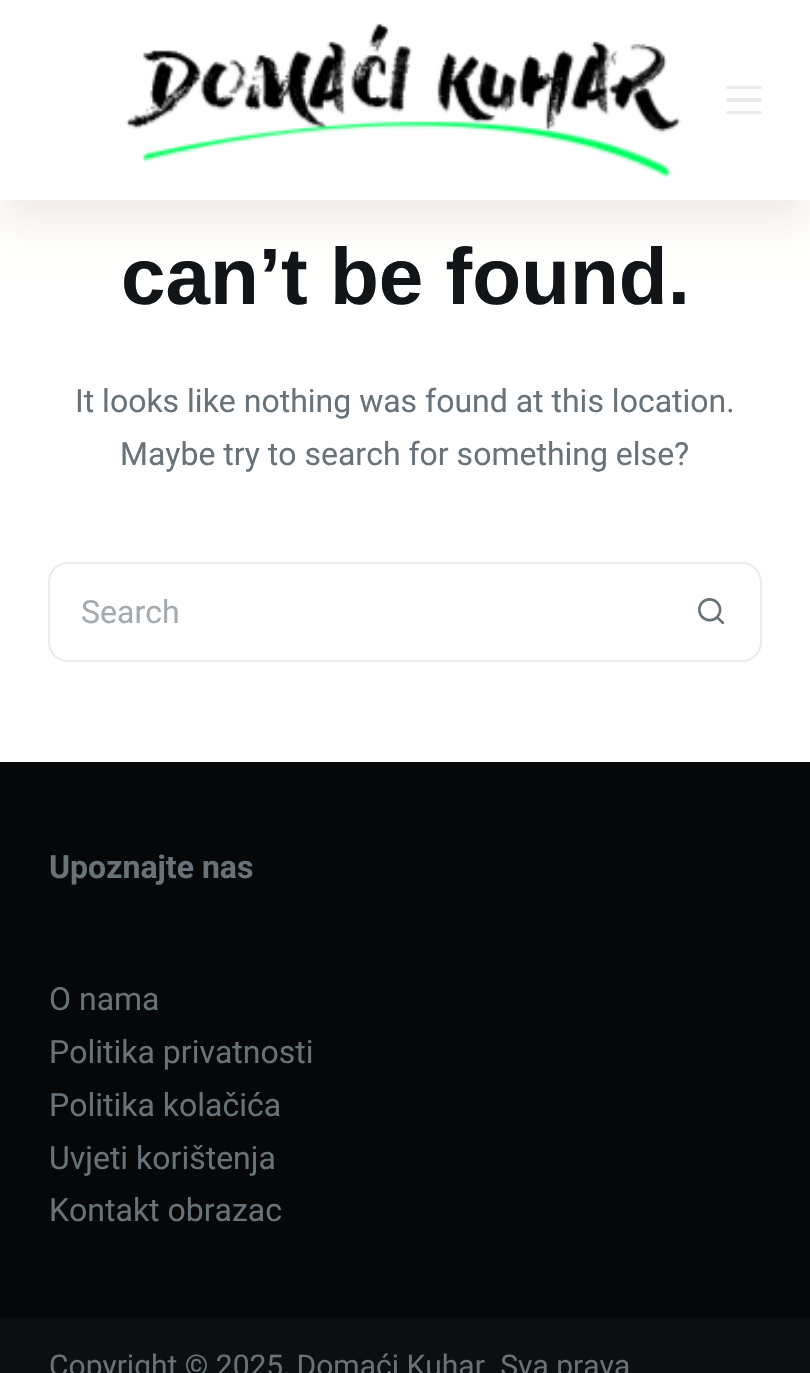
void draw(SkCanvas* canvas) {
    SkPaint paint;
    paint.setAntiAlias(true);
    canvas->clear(0xFFFFFFFF);
    paint.setColor(0x1A6A2601);
    paint.setMaskFilter(SkMaskFilter::MakeBlur(kNormal_SkBlurStyle, 20));
    canvas->drawRect(SkRect::MakeXYWH(0, 20, 810, 200), paint);
    paint.setMaskFilter(nullptr);
    paint.setColor(0xFFFFFFFF);
    canvas->drawRect(SkRect::MakeXYWH(0, 0, 810, 200), paint);
    canvas->drawImageRect(SkImages::DeferredFromEncodedData(SkData::MakeFromFileName("img1.png")), SkRect::MakeXYWH(126, 23, 555, 155), SkSamplingOptions());
    paint.setColor(0xFFE9EBEC);
    canvas->drawRoundRect(SkRect::MakeXYWH(726, 86, 36, 3), 1.5f, 1.5f, paint);
    canvas->drawRoundRect(SkRect::MakeXYWH(726, 98, 36, 4), 2, 2, paint);
    canvas->drawRoundRect(SkRect::MakeXYWH(726, 111, 36, 3), 1.5f, 1.5f, paint);
    SkFont font1(fontMgr->matchFamilyStyle("Liberation Sans", SkFontStyle::Bold()), 80);
    font1.setSubpixel(true);
    paint.setColor(0xFF111518);
    canvas->drawString("can’t be found.", 121, 304, font1, paint);
    SkFont font2(fontMgr->matchFamilyStyle("Roboto", SkFontStyle::Normal()), 32);
    font2.setSubpixel(true);
    paint.setColor(0xFF687279);
    canvas->drawString("It looks like nothing was found at this location.", 75, 412, font2, paint);
    canvas->drawString("Maybe try to search for something else?", 120, 465, font2, paint);
    paint.setColor(0xFFE9EBEC);
    canvas->drawPath(SkPathBuilder(SkPathFillType::kEvenOdd).moveTo(68, 562).lineTo(662, 562).lineTo(662, 662).lineTo(68, 662).cubicTo(57, 662, 48, 653, 48, 642).lineTo(48, 582).cubicTo(48, 571, 57, 562, 68, 562).close().moveTo(68, 564).lineTo(662, 564).lineTo(662, 660).lineTo(68, 660).cubicTo(58, 660, 50, 652, 50, 642).lineTo(50, 582).cubicTo(50, 572, 58, 564, 68, 564).close().detach(), paint);
    paint.setColor(0xFFA4AAAF);
    canvas->drawString("Search", 81, 623, font2, paint);
    paint.setColor(0xFFE9EBEC);
    canvas->drawPath(SkPathBuilder(SkPathFillType::kEvenOdd).moveTo(662, 562).lineTo(742, 562).cubicTo(753, 562, 762, 571, 762, 582).lineTo(762, 642).cubicTo(762, 653, 753, 662, 742, 662).lineTo(662, 662).close().moveTo(662, 564).lineTo(742, 564).cubicTo(752, 564, 760, 572, 760, 582).lineTo(760, 642).cubicTo(760, 652, 752, 660, 742, 660).lineTo(662, 660).close().detach(), paint);
    canvas->drawImageRect(SkImages::DeferredFromEncodedData(SkData::MakeFromFileName("img2.png")), SkRect::MakeXYWH(698, 598, 26, 26), SkSamplingOptions());
    paint.setColor(0xFF050709);
    canvas->drawRect(SkRect::MakeXYWH(0, 762, 810, 556), paint);
    SkFont font3(fontMgr->matchFamilyStyle("Roboto", SkFontStyle::Bold()), 32);
    font3.setSubpixel(true);
    paint.setColor(0xFF687279);
    canvas->drawString("Upoznajte nas", 49, 878, font3, paint);
    canvas->drawString("O nama", 49, 1010, font2, paint);
    canvas->drawString("Politika privatnosti", 49, 1063, font2, paint);
    canvas->drawString("Politika kolačića", 49, 1116, font2, paint);
    canvas->drawString("Uvjeti korištenja", 49, 1169, font2, paint);
    canvas->drawString("Kontakt obrazac", 49, 1221, font2, paint);
    paint.setColor(0xFF0C0F12);
    canvas->drawRect(SkRect::MakeXYWH(0, 1318, 810, 55), paint);
    SkFont font4(fontMgr->matchFamilyStyle("Roboto", SkFontStyle::Normal()), 30);
    font4.setSubpixel(true);
    paint.setColor(0xFF687279);
    canvas->drawString("Copyright © 2025, Domaći Kuhar. Sva prava", 49, 1376, font4, paint);
}
